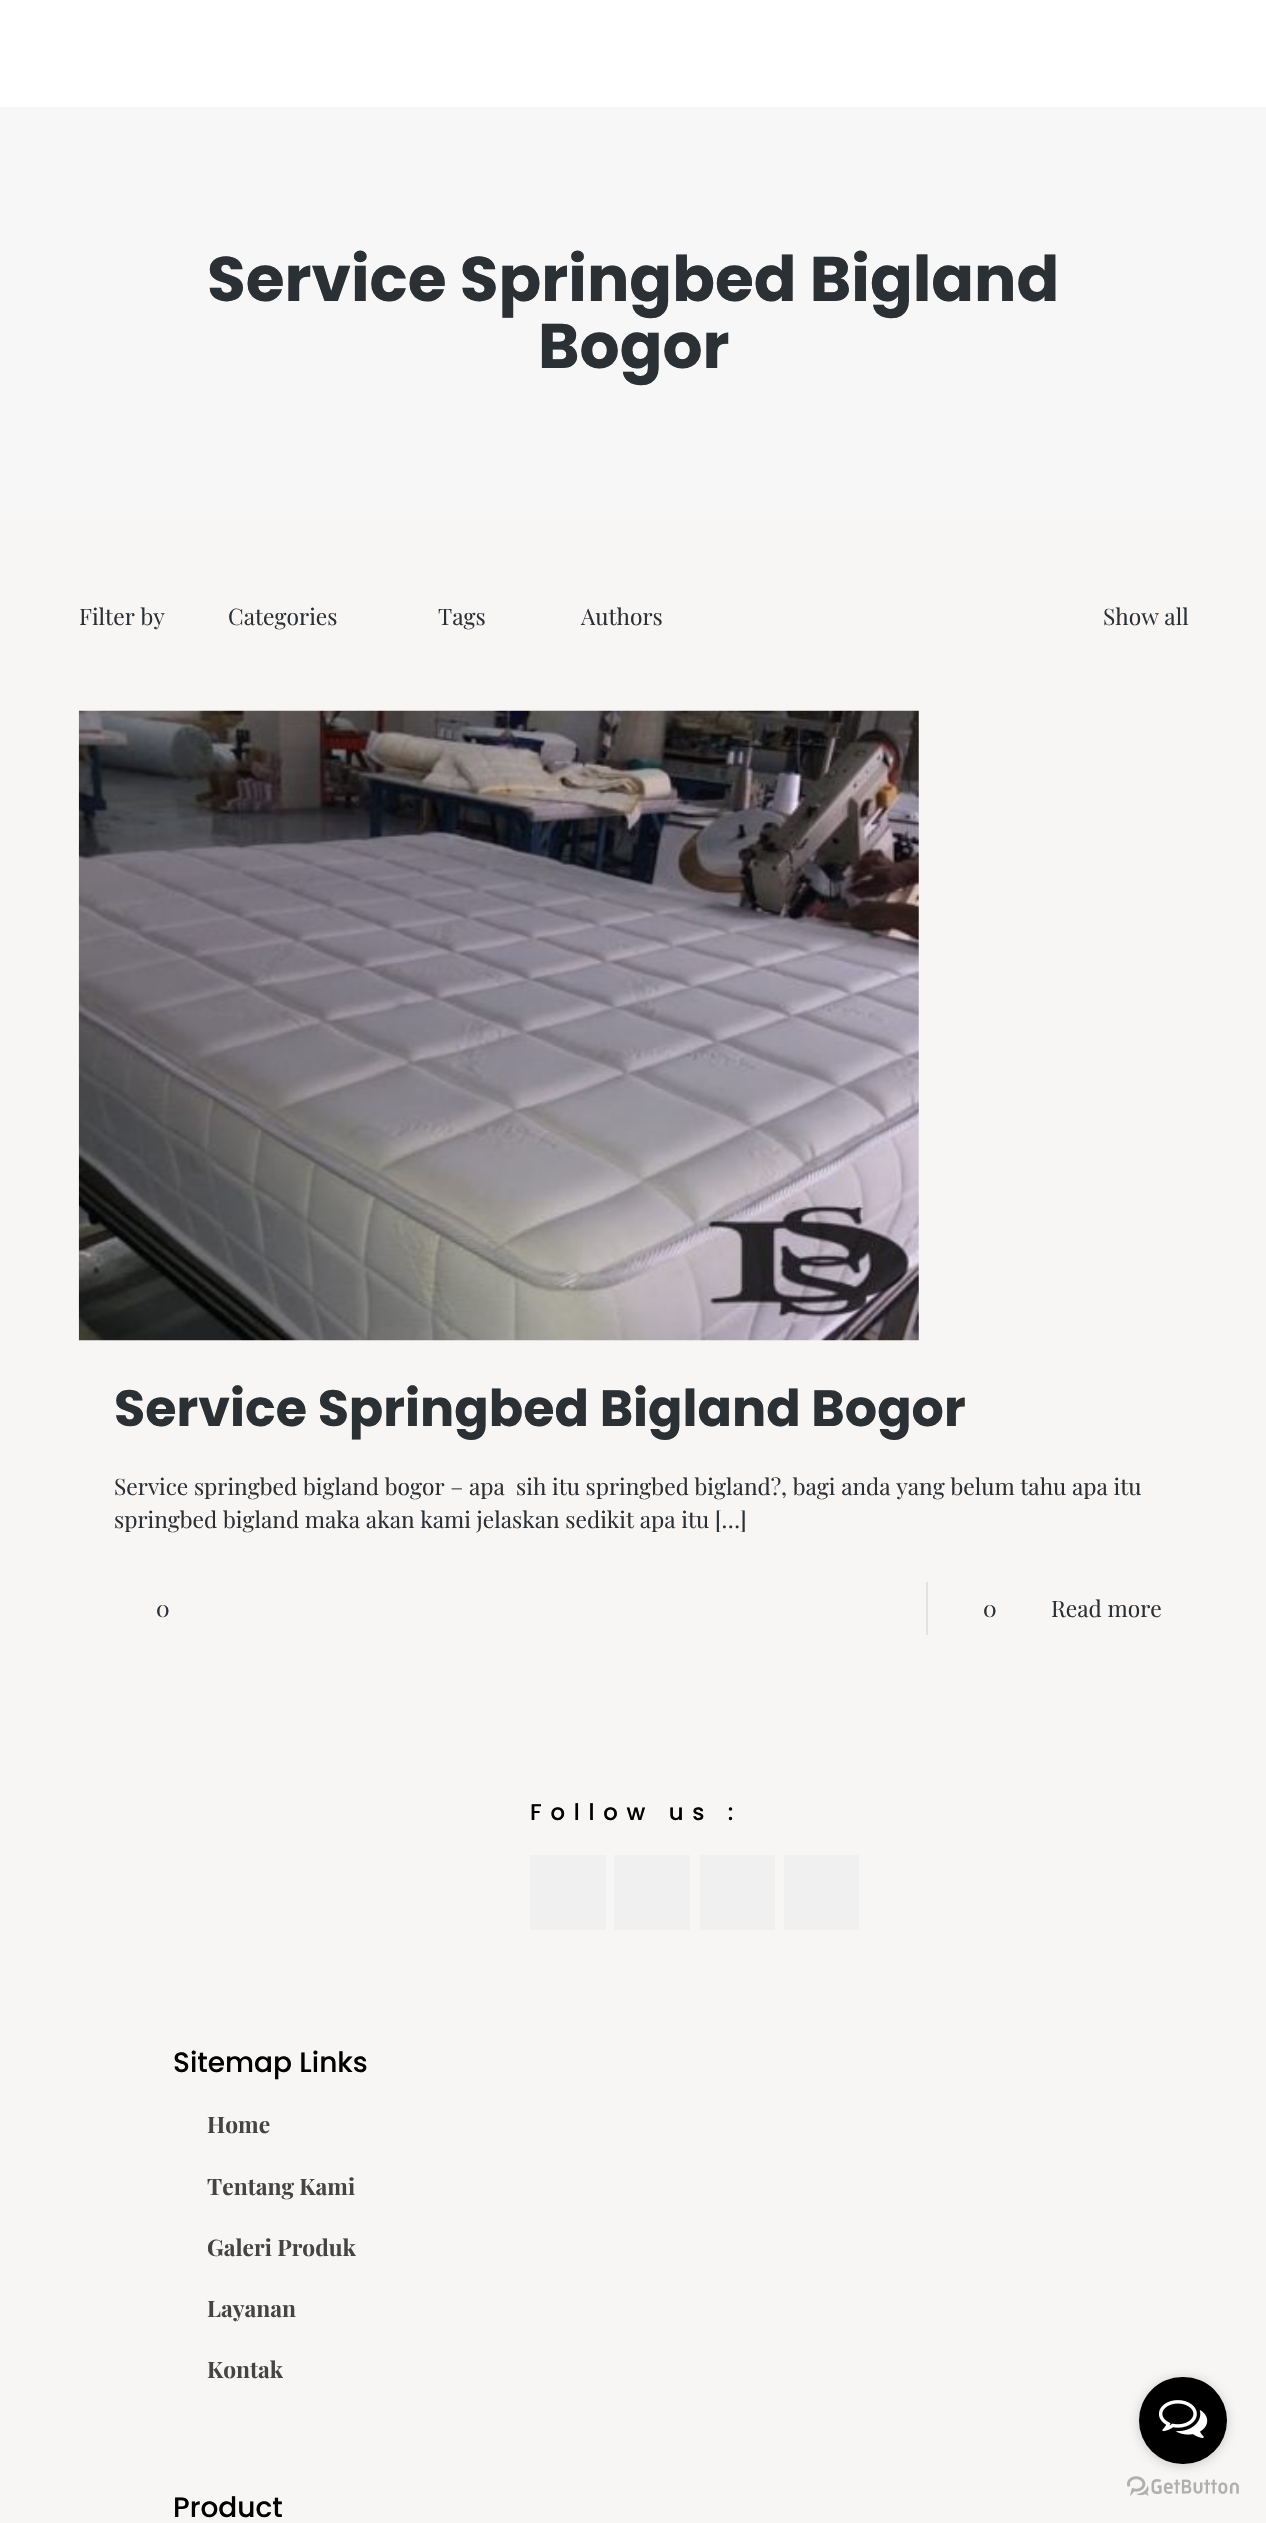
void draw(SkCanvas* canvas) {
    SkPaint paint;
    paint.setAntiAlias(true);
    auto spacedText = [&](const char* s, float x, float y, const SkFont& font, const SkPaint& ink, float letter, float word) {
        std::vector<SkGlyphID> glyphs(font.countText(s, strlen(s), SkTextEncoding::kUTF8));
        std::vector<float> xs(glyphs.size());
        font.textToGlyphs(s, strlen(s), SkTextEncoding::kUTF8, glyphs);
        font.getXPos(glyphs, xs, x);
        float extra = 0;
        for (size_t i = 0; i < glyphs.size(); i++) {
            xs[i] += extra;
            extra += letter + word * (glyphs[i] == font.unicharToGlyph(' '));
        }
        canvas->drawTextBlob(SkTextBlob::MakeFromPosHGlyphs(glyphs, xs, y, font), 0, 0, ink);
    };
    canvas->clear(0xFFF7F6F4);
    paint.setColor(0xFFFFFFFF);
    canvas->drawRect(SkRect::MakeXYWH(0, 0, 1266, 107), paint);
    paint.setColor(0xFFF7F7F7);
    canvas->drawRect(SkRect::MakeXYWH(0, 107, 1266, 413), paint);
    SkFont font1(fontMgr->matchFamilyStyle("Poppins", SkFontStyle::Bold()), 63);
    font1.setSubpixel(true);
    paint.setColor(0xFF2B3035);
    canvas->drawString("Service Springbed Bigland", 207, 301, font1, paint);
    canvas->drawString("Bogor", 538, 368, font1, paint);
    SkFont font2(fontMgr->matchFamilyStyle("Playfair Display", SkFontStyle::Normal()), 22.75f);
    font2.setSubpixel(true);
    canvas->drawString("Filter by", 79, 625, font2, paint);
    canvas->drawString("Categories", 228, 625, font2, paint);
    canvas->drawString("Tags", 438, 625, font2, paint);
    canvas->drawString("Authors", 581, 625, font2, paint);
    canvas->drawString("Show all", 1103, 625, font2, paint);
    canvas->drawImageRect(SkImages::DeferredFromEncodedData(SkData::MakeFromFileName("img1.png")), SkRect::MakeXYWH(78, 710, 841, 631), SkSamplingOptions());
    SkFont font3(fontMgr->matchFamilyStyle("Poppins", SkFontStyle::Bold()), 50.75f);
    font3.setSubpixel(true);
    canvas->drawString("Service Springbed Bigland Bogor", 114, 1426, font3, paint);
    canvas->drawString("Service springbed bigland bogor – apa  sih itu springbed bigland?, bagi anda yang belum tahu apa itu", 114, 1495, font2, paint);
    canvas->drawString("springbed bigland maka akan kami jelaskan sedikit apa itu […]", 114, 1528, font2, paint);
    canvas->drawString("0", 156, 1617, font2, paint);
    paint.setColor(0xFFE3E2E0);
    canvas->drawRect(SkRect::MakeXYWH(926, 1582, 2, 53), paint);
    paint.setColor(0xFF2B3035);
    canvas->drawString("0", 983, 1617, font2, paint);
    canvas->drawString("Read more", 1051, 1617, font2, paint);
    SkFont font4(fontMgr->matchFamilyStyle("Poppins", SkFontStyle(500, SkFontStyle::kNormal_Width, SkFontStyle::kUpright_Slant)), 22.75f);
    font4.setSubpixel(true);
    paint.setColor(0xFF000000);
    spacedText("Follow us :", 530, 1820, font4, paint, 8.75f, 0);
    paint.setColor(0xFFF0F0F0);
    canvas->drawRect(SkRect::MakeXYWH(530, 1855, 76, 75), paint);
    canvas->drawRect(SkRect::MakeXYWH(614, 1855, 76, 75), paint);
    canvas->drawRect(SkRect::MakeXYWH(700, 1855, 75, 75), paint);
    canvas->drawRect(SkRect::MakeXYWH(784, 1855, 75, 75), paint);
    SkFont font5(fontMgr->matchFamilyStyle("Poppins", SkFontStyle(500, SkFontStyle::kNormal_Width, SkFontStyle::kUpright_Slant)), 28);
    font5.setSubpixel(true);
    paint.setColor(0xFF000000);
    canvas->drawString("Sitemap Links", 173, 2072, font5, paint);
    SkFont font6(fontMgr->matchFamilyStyle("Playfair Display", SkFontStyle::Bold()), 22.75f);
    font6.setSubpixel(true);
    paint.setColor(0xFF444444);
    canvas->drawString("Home", 207, 2133, font6, paint);
    canvas->drawString("Tentang Kami", 207, 2195, font6, paint);
    canvas->drawString("Galeri Produk", 207, 2256, font6, paint);
    canvas->drawString("Layanan", 207, 2317, font6, paint);
    canvas->drawString("Kontak", 207, 2378, font6, paint);
    paint.setColor(0xFF000000);
    canvas->drawString("Product", 173, 2517, font5, paint);
    canvas->drawImageRect(SkImages::DeferredFromEncodedData(SkData::MakeFromFileName("img3.png")), SkRect::MakeXYWH(1127, 2476, 112, 20), SkSamplingOptions());
    paint.setColor(0x66888888);
    paint.setMaskFilter(SkMaskFilter::MakeBlur(kNormal_SkBlurStyle, 6));
    canvas->drawRoundRect(SkRect::MakeXYWH(1139, 2378, 88, 88), 44, 44, paint);
    paint.setMaskFilter(nullptr);
    paint.setColor(0xFF000000);
    canvas->drawRoundRect(SkRect::MakeXYWH(1139, 2377, 88, 87), 43.5f, 43.5f, paint);
    canvas->drawImageRect(SkImages::DeferredFromEncodedData(SkData::MakeFromFileName("img2.png")), SkRect::MakeXYWH(1158, 2400, 50, 38), SkSamplingOptions());
}
